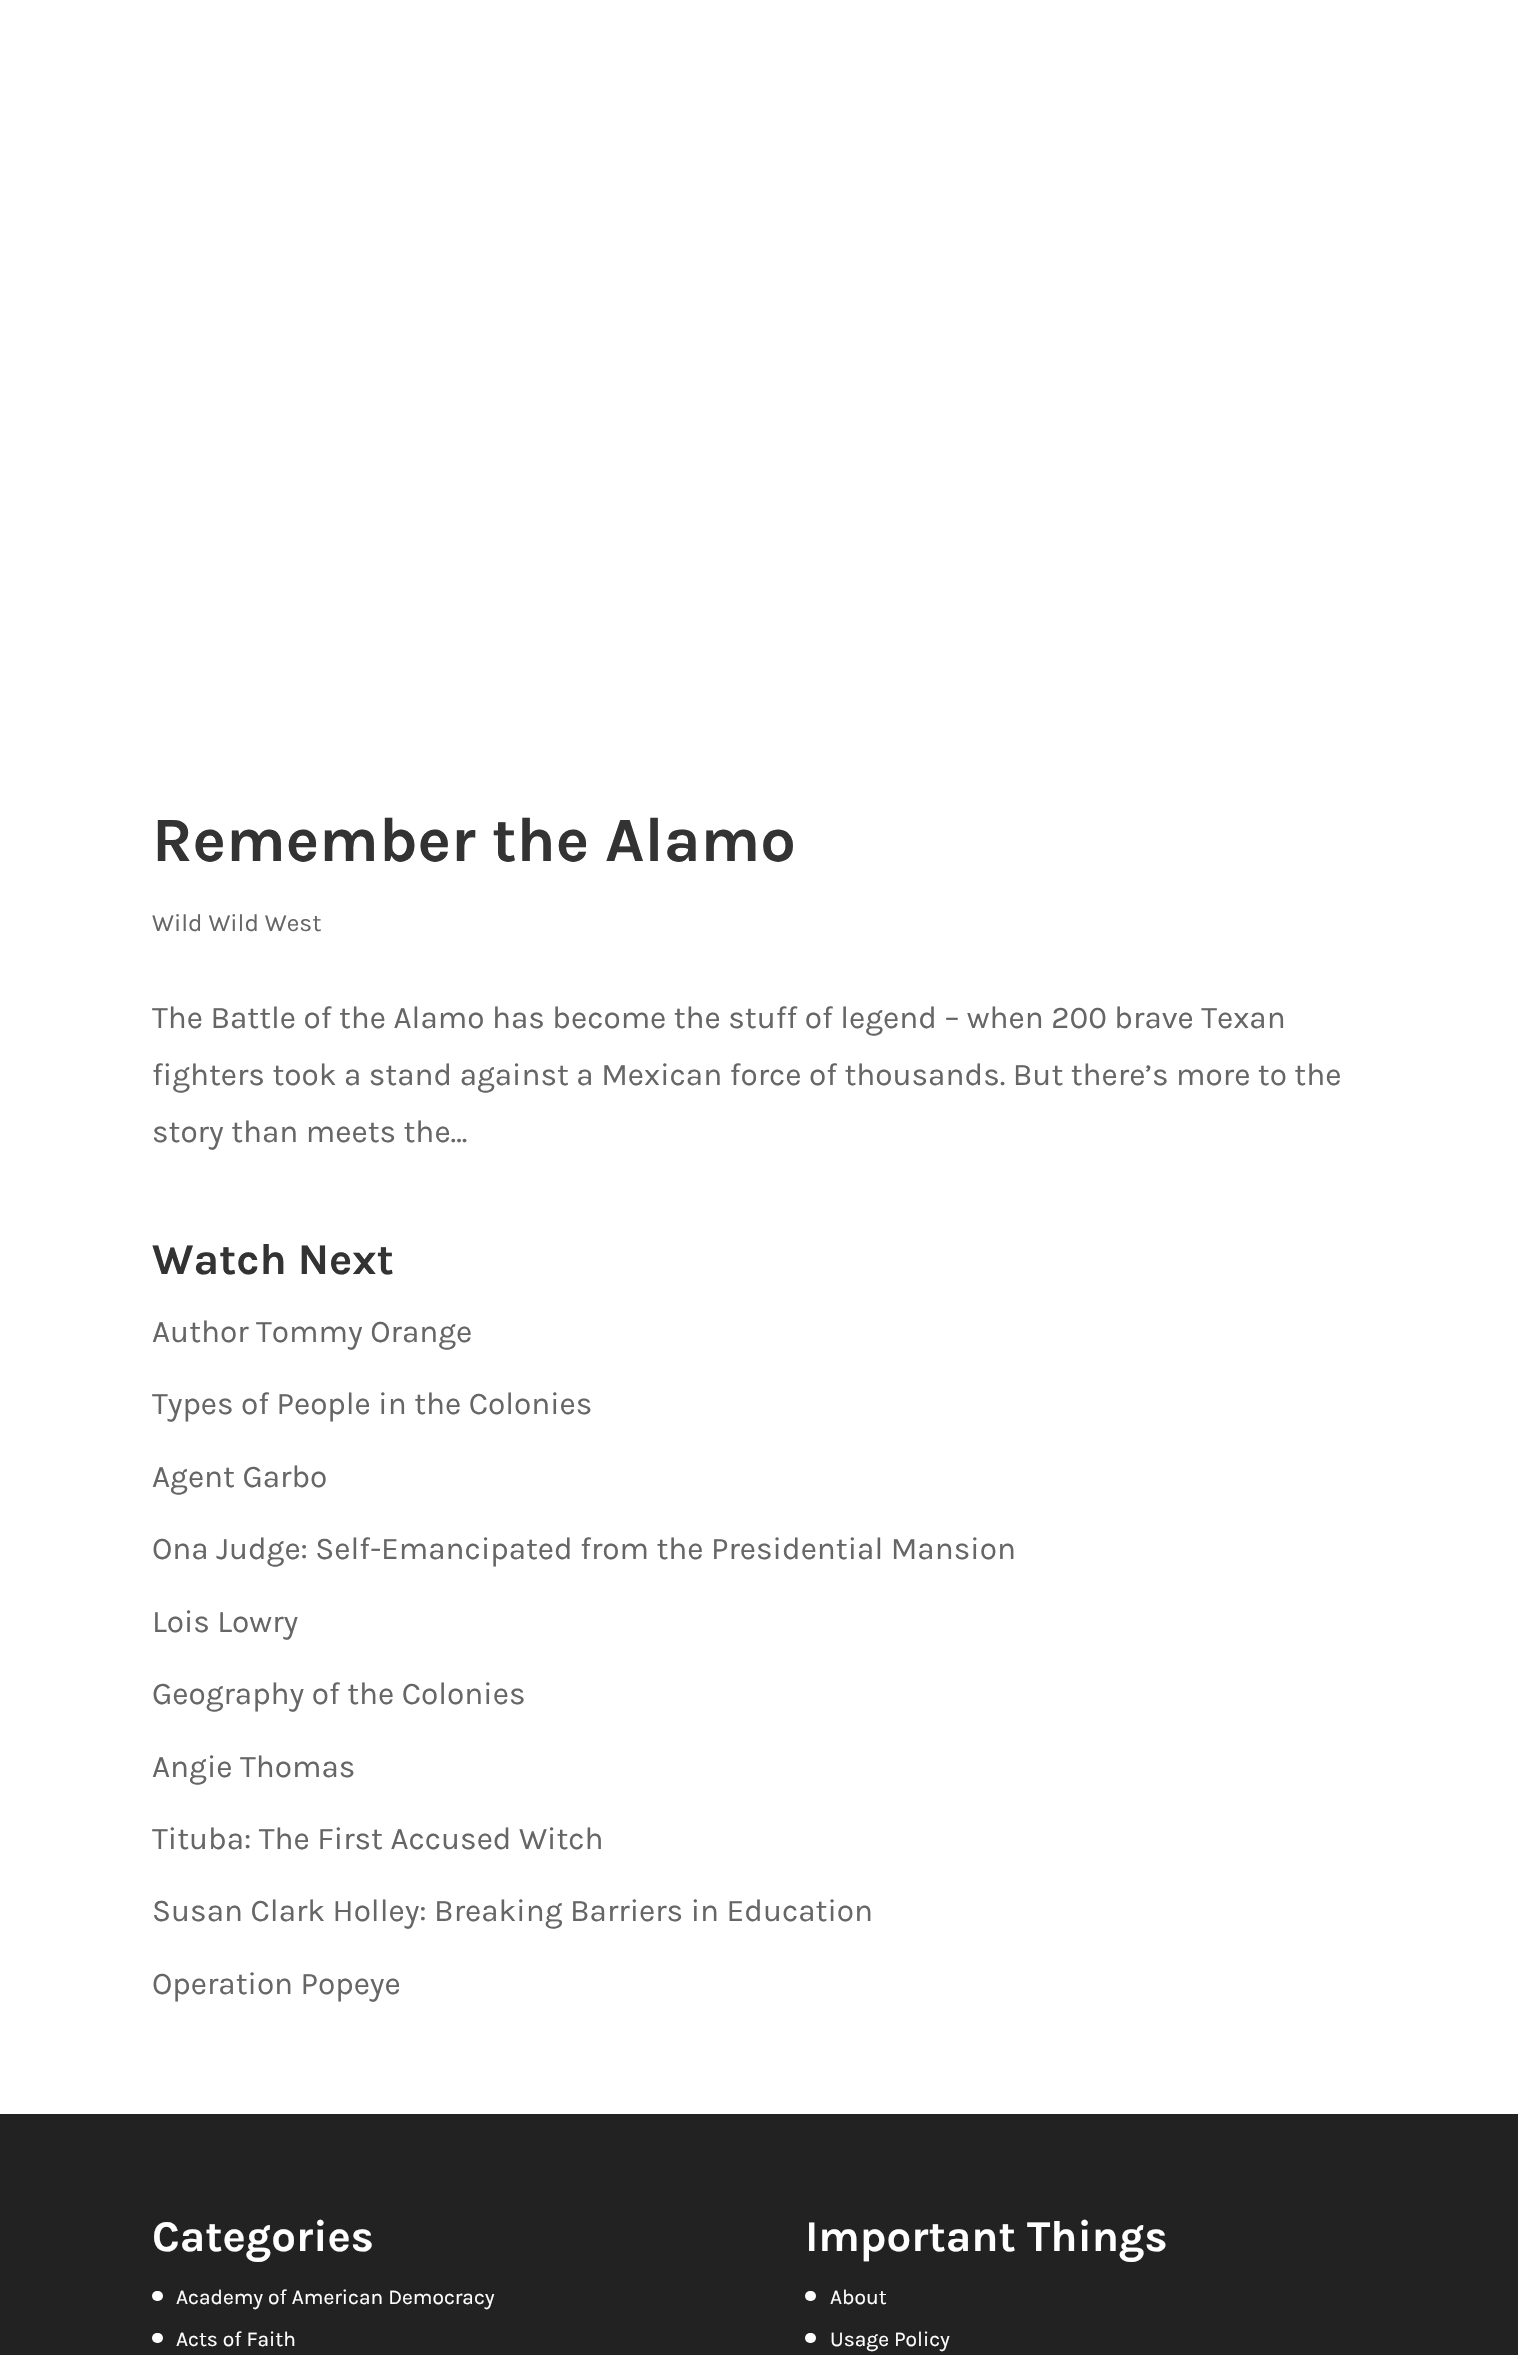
void draw(SkCanvas* canvas) {
    SkPaint paint;
    paint.setAntiAlias(true);
    canvas->clear(0xFFFFFFFF);
    SkFont font1(fontMgr->matchFamilyStyle("Karla", SkFontStyle::Bold()), 63);
    font1.setSubpixel(true);
    paint.setColor(0xFF333333);
    canvas->drawString("Remember the Alamo", 152, 861, font1, paint);
    SkFont font2(fontMgr->matchFamilyStyle("Karla", SkFontStyle::Normal()), 24.5f);
    font2.setSubpixel(true);
    paint.setColor(0xFF666666);
    canvas->drawString("Wild Wild West", 152, 931, font2, paint);
    SkFont font3(fontMgr->matchFamilyStyle("Karla", SkFontStyle::Normal()), 31.5f);
    font3.setSubpixel(true);
    canvas->drawString("The Battle of the Alamo has become the stuff of legend – when 200 brave Texan", 152, 1028, font3, paint);
    canvas->drawString("fighters took a stand against a Mexican force of thousands. But there’s more to the", 152, 1085, font3, paint);
    canvas->drawString("story than meets the...", 152, 1142, font3, paint);
    SkFont font4(fontMgr->matchFamilyStyle("Karla", SkFontStyle::Bold()), 43.75f);
    font4.setSubpixel(true);
    paint.setColor(0xFF333333);
    canvas->drawString("Watch Next", 152, 1274, font4, paint);
    paint.setColor(0xFF666666);
    canvas->drawString("Author Tommy Orange", 152, 1342, font3, paint);
    canvas->drawString("Types of People in the Colonies", 152, 1414, font3, paint);
    canvas->drawString("Agent Garbo", 152, 1487, font3, paint);
    canvas->drawString("Ona Judge: Self-Emancipated from the Presidential Mansion", 152, 1559, font3, paint);
    canvas->drawString("Lois Lowry", 152, 1632, font3, paint);
    canvas->drawString("Geography of the Colonies", 152, 1704, font3, paint);
    canvas->drawString("Angie Thomas", 152, 1777, font3, paint);
    canvas->drawString("Tituba: The First Accused Witch", 152, 1849, font3, paint);
    canvas->drawString("Susan Clark Holley: Breaking Barriers in Education", 152, 1921, font3, paint);
    canvas->drawString("Operation Popeye", 152, 1994, font3, paint);
    paint.setColor(0xFF222222);
    canvas->drawRect(SkRect::MakeXYWH(0, 2114, 1518, 241), paint);
    paint.setColor(0xFFFFFFFF);
    canvas->drawString("Categories", 152, 2251, font4, paint);
    canvas->drawRoundRect(SkRect::MakeXYWH(152, 2291, 11, 10), 5, 5, paint);
    SkFont font5(fontMgr->matchFamilyStyle("Karla", SkFontStyle::Normal()), 21);
    font5.setSubpixel(true);
    canvas->drawString("Academy of American Democracy", 176, 2304, font5, paint);
    canvas->drawRoundRect(SkRect::MakeXYWH(152, 2333, 11, 10), 5, 5, paint);
    canvas->drawString("Acts of Faith", 176, 2346, font5, paint);
    canvas->drawString("Important Things", 805, 2251, font4, paint);
    canvas->drawRoundRect(SkRect::MakeXYWH(805, 2291, 11, 10), 5, 5, paint);
    canvas->drawString("About", 830, 2304, font5, paint);
    canvas->drawRoundRect(SkRect::MakeXYWH(805, 2333, 11, 10), 5, 5, paint);
    canvas->drawString("Usage Policy", 830, 2346, font5, paint);
}
